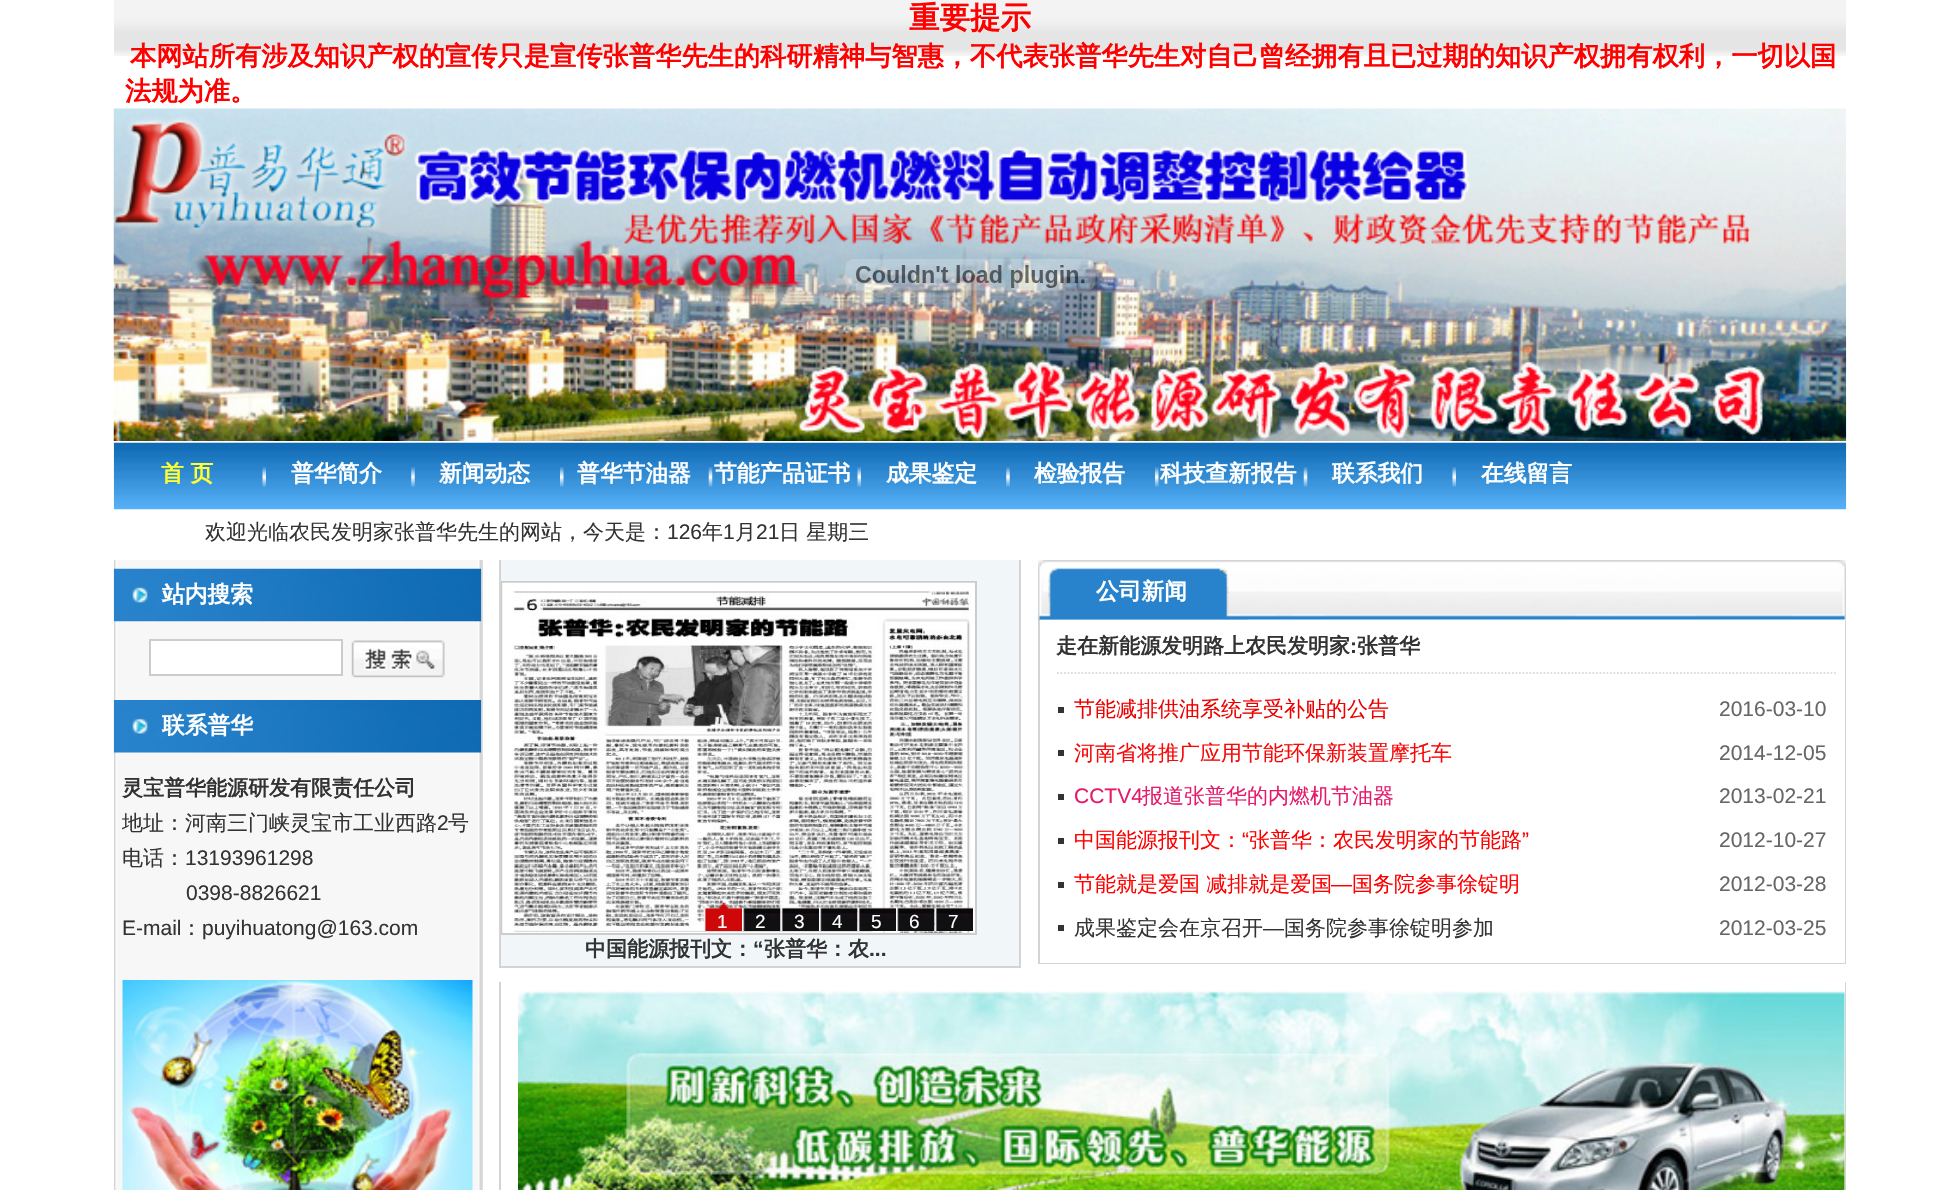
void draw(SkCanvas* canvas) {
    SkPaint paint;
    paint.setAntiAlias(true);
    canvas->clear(0xFFFFFFFF);
    canvas->drawImageRect(SkImages::DeferredFromEncodedData(SkData::MakeFromFileName("img1.png")), SkRect::MakeXYWH(114, 0, 1732, 56), SkSamplingOptions());
    SkFont font1(fontMgr->matchFamilyStyle("WenQuanYi Zen Hei", SkFontStyle::Bold()), 30.5f);
    font1.setSubpixel(true);
    paint.setColor(0xFFFF0000);
    canvas->drawString("重要提示", 909, 28, font1, paint);
    SkFont font2(fontMgr->matchFamilyStyle("WenQuanYi Zen Hei", SkFontStyle::Bold()), 26.25f);
    font2.setSubpixel(true);
    canvas->drawString("本网站所有涉及知识产权的宣传只是宣传张普华先生的科研精神与智惠，不代表张普华先生对自己曾经拥有且已过期的知识产权拥有权利，一切以国", 130, 65, font2, paint);
    canvas->drawString("法规为准。", 125, 100, font2, paint);
    canvas->drawImageRect(SkImages::DeferredFromEncodedData(SkData::MakeFromFileName("img2.png")), SkRect::MakeXYWH(113, 108, 1734, 333), SkSamplingOptions());
    canvas->drawImageRect(SkImages::DeferredFromEncodedData(SkData::MakeFromFileName("img3.png")), SkRect::MakeXYWH(845, 259, 251, 32), SkSamplingOptions());
    canvas->drawImageRect(SkImages::DeferredFromEncodedData(SkData::MakeFromFileName("img4.png")), SkRect::MakeXYWH(113, 442, 1734, 68), SkSamplingOptions());
    SkFont font3(fontMgr->matchFamilyStyle("WenQuanYi Zen Hei", SkFontStyle::Bold()), 22.75f);
    font3.setSubpixel(true);
    paint.setColor(0xFFFFFF33);
    canvas->drawString("首 页", 161, 481, font3, paint);
    canvas->drawImageRect(SkImages::DeferredFromEncodedData(SkData::MakeFromFileName("img5.png")), SkRect::MakeXYWH(262, 467, 4, 20), SkSamplingOptions());
    paint.setColor(0xFFFFFFFF);
    canvas->drawString("普华简介", 291, 481, font3, paint);
    canvas->drawImageRect(SkImages::DeferredFromEncodedData(SkData::MakeFromFileName("img6.png")), SkRect::MakeXYWH(411, 467, 4, 20), SkSamplingOptions());
    canvas->drawString("新闻动态", 439, 481, font3, paint);
    canvas->drawImageRect(SkImages::DeferredFromEncodedData(SkData::MakeFromFileName("img7.png")), SkRect::MakeXYWH(560, 467, 4, 20), SkSamplingOptions());
    canvas->drawString("普华节油器", 577, 481, font3, paint);
    canvas->drawImageRect(SkImages::DeferredFromEncodedData(SkData::MakeFromFileName("img8.png")), SkRect::MakeXYWH(708, 467, 5, 20), SkSamplingOptions());
    canvas->drawString("节能产品证书", 714, 481, font3, paint);
    canvas->drawImageRect(SkImages::DeferredFromEncodedData(SkData::MakeFromFileName("img5.png")), SkRect::MakeXYWH(857, 467, 4, 20), SkSamplingOptions());
    canvas->drawString("成果鉴定", 886, 481, font3, paint);
    canvas->drawImageRect(SkImages::DeferredFromEncodedData(SkData::MakeFromFileName("img6.png")), SkRect::MakeXYWH(1006, 467, 4, 20), SkSamplingOptions());
    canvas->drawString("检验报告", 1034, 481, font3, paint);
    canvas->drawImageRect(SkImages::DeferredFromEncodedData(SkData::MakeFromFileName("img7.png")), SkRect::MakeXYWH(1155, 467, 4, 20), SkSamplingOptions());
    canvas->drawString("科技查新报告", 1160, 481, font3, paint);
    canvas->drawImageRect(SkImages::DeferredFromEncodedData(SkData::MakeFromFileName("img8.png")), SkRect::MakeXYWH(1303, 467, 5, 20), SkSamplingOptions());
    canvas->drawString("联系我们", 1332, 481, font3, paint);
    canvas->drawImageRect(SkImages::DeferredFromEncodedData(SkData::MakeFromFileName("img5.png")), SkRect::MakeXYWH(1452, 467, 4, 20), SkSamplingOptions());
    canvas->drawString("在线留言", 1481, 481, font3, paint);
    SkFont font4(fontMgr->matchFamilyStyle("WenQuanYi Zen Hei", SkFontStyle(500, SkFontStyle::kNormal_Width, SkFontStyle::kUpright_Slant)), 21);
    font4.setSubpixel(true);
    paint.setColor(0xFF333333);
    canvas->drawString("欢迎光临农民发明家张普华先生的网站，今天是：", 205, 539, font4, paint);
    SkFont font5(fontMgr->matchFamilyStyle("Liberation Sans", SkFontStyle::Normal()), 21);
    font5.setSubpixel(true);
    canvas->drawString("126", 667, 539, font5, paint);
    canvas->drawString("年", 702, 539, font4, paint);
    canvas->drawString("1", 723, 539, font5, paint);
    canvas->drawString("月", 735, 539, font4, paint);
    canvas->drawString("21", 756, 539, font5, paint);
    canvas->drawString("日 星期三", 779, 539, font4, paint);
    canvas->drawImageRect(SkImages::DeferredFromEncodedData(SkData::MakeFromFileName("img9.png")), SkRect::MakeXYWH(114, 560, 369, 630), SkSamplingOptions());
    canvas->drawImageRect(SkImages::DeferredFromEncodedData(SkData::MakeFromFileName("img10.png")), SkRect::MakeXYWH(113, 568, 369, 54), SkSamplingOptions());
    paint.setColor(0xFFFFFFFF);
    canvas->drawString("站内搜索", 162, 602, font3, paint);
    canvas->drawRect(SkRect::MakeXYWH(150, 640, 192, 35), paint);
    paint.setStyle(SkPaint::kStroke_Style);
    paint.setStrokeWidth(2);
    paint.setColor(0xFFCCCCCC);
    canvas->drawRect(SkRect::MakeXYWH(150, 640, 192, 35), paint);
    canvas->drawImageRect(SkImages::DeferredFromEncodedData(SkData::MakeFromFileName("img11.png")), SkRect::MakeXYWH(351, 640, 94, 38), SkSamplingOptions());
    canvas->drawImageRect(SkImages::DeferredFromEncodedData(SkData::MakeFromFileName("img12.png")), SkRect::MakeXYWH(113, 700, 369, 53), SkSamplingOptions());
    paint.setStyle(SkPaint::kFill_Style);
    paint.setColor(0xFFFFFFFF);
    canvas->drawString("联系普华", 162, 733, font3, paint);
    SkFont font6(fontMgr->matchFamilyStyle("WenQuanYi Zen Hei", SkFontStyle::Bold()), 21);
    font6.setSubpixel(true);
    paint.setColor(0xFF333333);
    canvas->drawString("灵宝普华能源研发有限责任公司", 122, 795, font6, paint);
    canvas->drawString("地址：河南三门峡灵宝市工业西路", 122, 830, font4, paint);
    canvas->drawString("2", 437, 830, font5, paint);
    canvas->drawString("号", 448, 830, font4, paint);
    canvas->drawString("电话：", 122, 865, font4, paint);
    canvas->drawString("13193961298", 185, 865, font5, paint);
    canvas->drawString("0398-8826621", 186, 900, font5, paint);
    canvas->drawString("E-mail", 122, 935, font5, paint);
    canvas->drawString("：", 181, 935, font4, paint);
    canvas->drawString("puyihuatong@163.com", 202, 935, font5, paint);
    canvas->drawImageRect(SkImages::DeferredFromEncodedData(SkData::MakeFromFileName("img13.png")), SkRect::MakeXYWH(122, 980, 351, 210), SkSamplingOptions());
    paint.setColor(0xFFF1F6F9);
    canvas->drawRect(SkRect::MakeXYWH(501, 560, 518, 406), paint);
    paint.setColor(0xFFD4D4D4);
    canvas->drawRect(SkRect::MakeXYWH(1019, 560, 2, 408), paint);
    canvas->drawRect(SkRect::MakeXYWH(499, 966, 521, 2), paint);
    canvas->drawRect(SkRect::MakeXYWH(499, 560, 2, 408), paint);
    paint.setStyle(SkPaint::kStroke_Style);
    paint.setColor(0xFFCCCCCC);
    canvas->drawRect(SkRect::MakeXYWH(502, 582, 474, 352), paint);
    canvas->drawImageRect(SkImages::DeferredFromEncodedData(SkData::MakeFromFileName("img14.png")), SkRect::MakeXYWH(502, 582, 473, 351), SkSamplingOptions());
    canvas->drawImageRect(SkImages::DeferredFromEncodedData(SkData::MakeFromFileName("img15.png")), SkRect::MakeXYWH(703, 903, 39, 28), SkSamplingOptions());
    SkFont font7(fontMgr->matchFamilyStyle("Liberation Sans", SkFontStyle::Normal()), 19);
    font7.setSubpixel(true);
    paint.setStyle(SkPaint::kFill_Style);
    paint.setColor(0xFFFFFFFF);
    canvas->drawString("1", 717, 928, font7, paint);
    canvas->drawImageRect(SkImages::DeferredFromEncodedData(SkData::MakeFromFileName("img16.png")), SkRect::MakeXYWH(742, 907, 39, 24), SkSamplingOptions());
    canvas->drawString("2", 755, 928, font7, paint);
    canvas->drawImageRect(SkImages::DeferredFromEncodedData(SkData::MakeFromFileName("img17.png")), SkRect::MakeXYWH(780, 907, 39, 24), SkSamplingOptions());
    canvas->drawString("3", 794, 928, font7, paint);
    canvas->drawImageRect(SkImages::DeferredFromEncodedData(SkData::MakeFromFileName("img18.png")), SkRect::MakeXYWH(819, 907, 39, 24), SkSamplingOptions());
    canvas->drawString("4", 832, 928, font7, paint);
    canvas->drawImageRect(SkImages::DeferredFromEncodedData(SkData::MakeFromFileName("img19.png")), SkRect::MakeXYWH(857, 907, 39, 24), SkSamplingOptions());
    canvas->drawString("5", 871, 928, font7, paint);
    canvas->drawImageRect(SkImages::DeferredFromEncodedData(SkData::MakeFromFileName("img20.png")), SkRect::MakeXYWH(896, 907, 39, 24), SkSamplingOptions());
    canvas->drawString("6", 909, 928, font7, paint);
    canvas->drawImageRect(SkImages::DeferredFromEncodedData(SkData::MakeFromFileName("img21.png")), SkRect::MakeXYWH(934, 907, 39, 24), SkSamplingOptions());
    canvas->drawString("7", 948, 928, font7, paint);
    paint.setColor(0xFF333333);
    canvas->drawString("中国能源报刊文：", 585, 956, font6, paint);
    SkFont font8(fontMgr->matchFamilyStyle("Liberation Sans", SkFontStyle::Bold()), 21);
    font8.setSubpixel(true);
    canvas->drawString("“", 753, 956, font8, paint);
    canvas->drawString("张普华：农", 764, 956, font6, paint);
    canvas->drawString("...", 869, 956, font8, paint);
    canvas->drawImageRect(SkImages::DeferredFromEncodedData(SkData::MakeFromFileName("img22.png")), SkRect::MakeXYWH(1037, 560, 809, 60), SkSamplingOptions());
    canvas->drawImageRect(SkImages::DeferredFromEncodedData(SkData::MakeFromFileName("img23.png")), SkRect::MakeXYWH(1038, 560, 210, 60), SkSamplingOptions());
    paint.setColor(0xFFFFFFFF);
    canvas->drawString("公司新闻", 1096, 599, font3, paint);
    paint.setColor(0xFFD4D4D4);
    canvas->drawRect(SkRect::MakeXYWH(1845, 620, 1, 344), paint);
    canvas->drawRect(SkRect::MakeXYWH(1038, 963, 808, 1), paint);
    canvas->drawRect(SkRect::MakeXYWH(1038, 620, 2, 344), paint);
    paint.setStyle(SkPaint::kStroke_Style);
    paint.setStrokeWidth(1.8f);
    paint.setColor(0xFFDDDDDD);
    paint.setPathEffect(SkDashPathEffect::Make({{1.75f, 1.75f}}, 0));
    canvas->drawPath(SkPathBuilder().moveTo(1057, 673).lineTo(1836, 673).detach(), paint);
    paint.setPathEffect(nullptr);
    paint.setStyle(SkPaint::kFill_Style);
    paint.setColor(0xFF333333);
    canvas->drawString("走在新能源发明路上农民发明家", 1056, 653, font6, paint);
    canvas->drawString(":", 1350, 653, font8, paint);
    canvas->drawString("张普华", 1357, 653, font6, paint);
    canvas->drawRect(SkRect::MakeXYWH(1058, 707, 6, 6), paint);
    paint.setColor(0xFFEE0000);
    canvas->drawString("节能减排供油系统享受补贴的公告", 1074, 716, font4, paint);
    paint.setColor(0xFF666666);
    canvas->drawString("2016-03-10", 1719, 716, font5, paint);
    paint.setColor(0xFF333333);
    canvas->drawRect(SkRect::MakeXYWH(1058, 750, 6, 6), paint);
    paint.setColor(0xFFF70909);
    canvas->drawString("河南省将推广应用节能环保新装置摩托车", 1074, 760, font4, paint);
    paint.setColor(0xFF666666);
    canvas->drawString("2014-12-05", 1719, 760, font5, paint);
    paint.setColor(0xFF333333);
    canvas->drawRect(SkRect::MakeXYWH(1058, 794, 6, 6), paint);
    paint.setColor(0xFFE61A6B);
    canvas->drawString("CCTV4", 1074, 803, font5, paint);
    canvas->drawString("报道张普华的内燃机节油器", 1142, 803, font4, paint);
    paint.setColor(0xFF666666);
    canvas->drawString("2013-02-21", 1719, 803, font5, paint);
    paint.setColor(0xFF333333);
    canvas->drawRect(SkRect::MakeXYWH(1058, 838, 6, 6), paint);
    paint.setColor(0xFFFF0000);
    canvas->drawString("中国能源报刊文：", 1074, 847, font4, paint);
    canvas->drawString("“", 1242, 847, font5, paint);
    canvas->drawString("张普华：农民发明家的节能路", 1249, 847, font4, paint);
    canvas->drawString("”", 1522, 847, font5, paint);
    paint.setColor(0xFF666666);
    canvas->drawString("2012-10-27", 1719, 847, font5, paint);
    paint.setColor(0xFF333333);
    canvas->drawRect(SkRect::MakeXYWH(1058, 882, 6, 6), paint);
    paint.setColor(0xFFFF0000);
    canvas->drawString("节能就是爱国 减排就是爱国", 1074, 891, font4, paint);
    canvas->drawString("—", 1331, 891, font5, paint);
    canvas->drawString("国务院参事徐锭明", 1352, 891, font4, paint);
    paint.setColor(0xFF666666);
    canvas->drawString("2012-03-28", 1719, 891, font5, paint);
    paint.setColor(0xFF333333);
    canvas->drawRect(SkRect::MakeXYWH(1058, 925, 6, 6), paint);
    canvas->drawString("成果鉴定会在京召开", 1074, 935, font4, paint);
    canvas->drawString("—", 1263, 935, font5, paint);
    canvas->drawString("国务院参事徐锭明参加", 1284, 935, font4, paint);
    paint.setColor(0xFF666666);
    canvas->drawString("2012-03-25", 1719, 935, font5, paint);
    paint.setColor(0xFFD4D4D4);
    canvas->drawRect(SkRect::MakeXYWH(1845, 982, 1, 208), paint);
    canvas->drawRect(SkRect::MakeXYWH(499, 982, 2, 208), paint);
    canvas->drawImageRect(SkImages::DeferredFromEncodedData(SkData::MakeFromFileName("img24.png")), SkRect::MakeXYWH(518, 990, 1327, 200), SkSamplingOptions());
}
